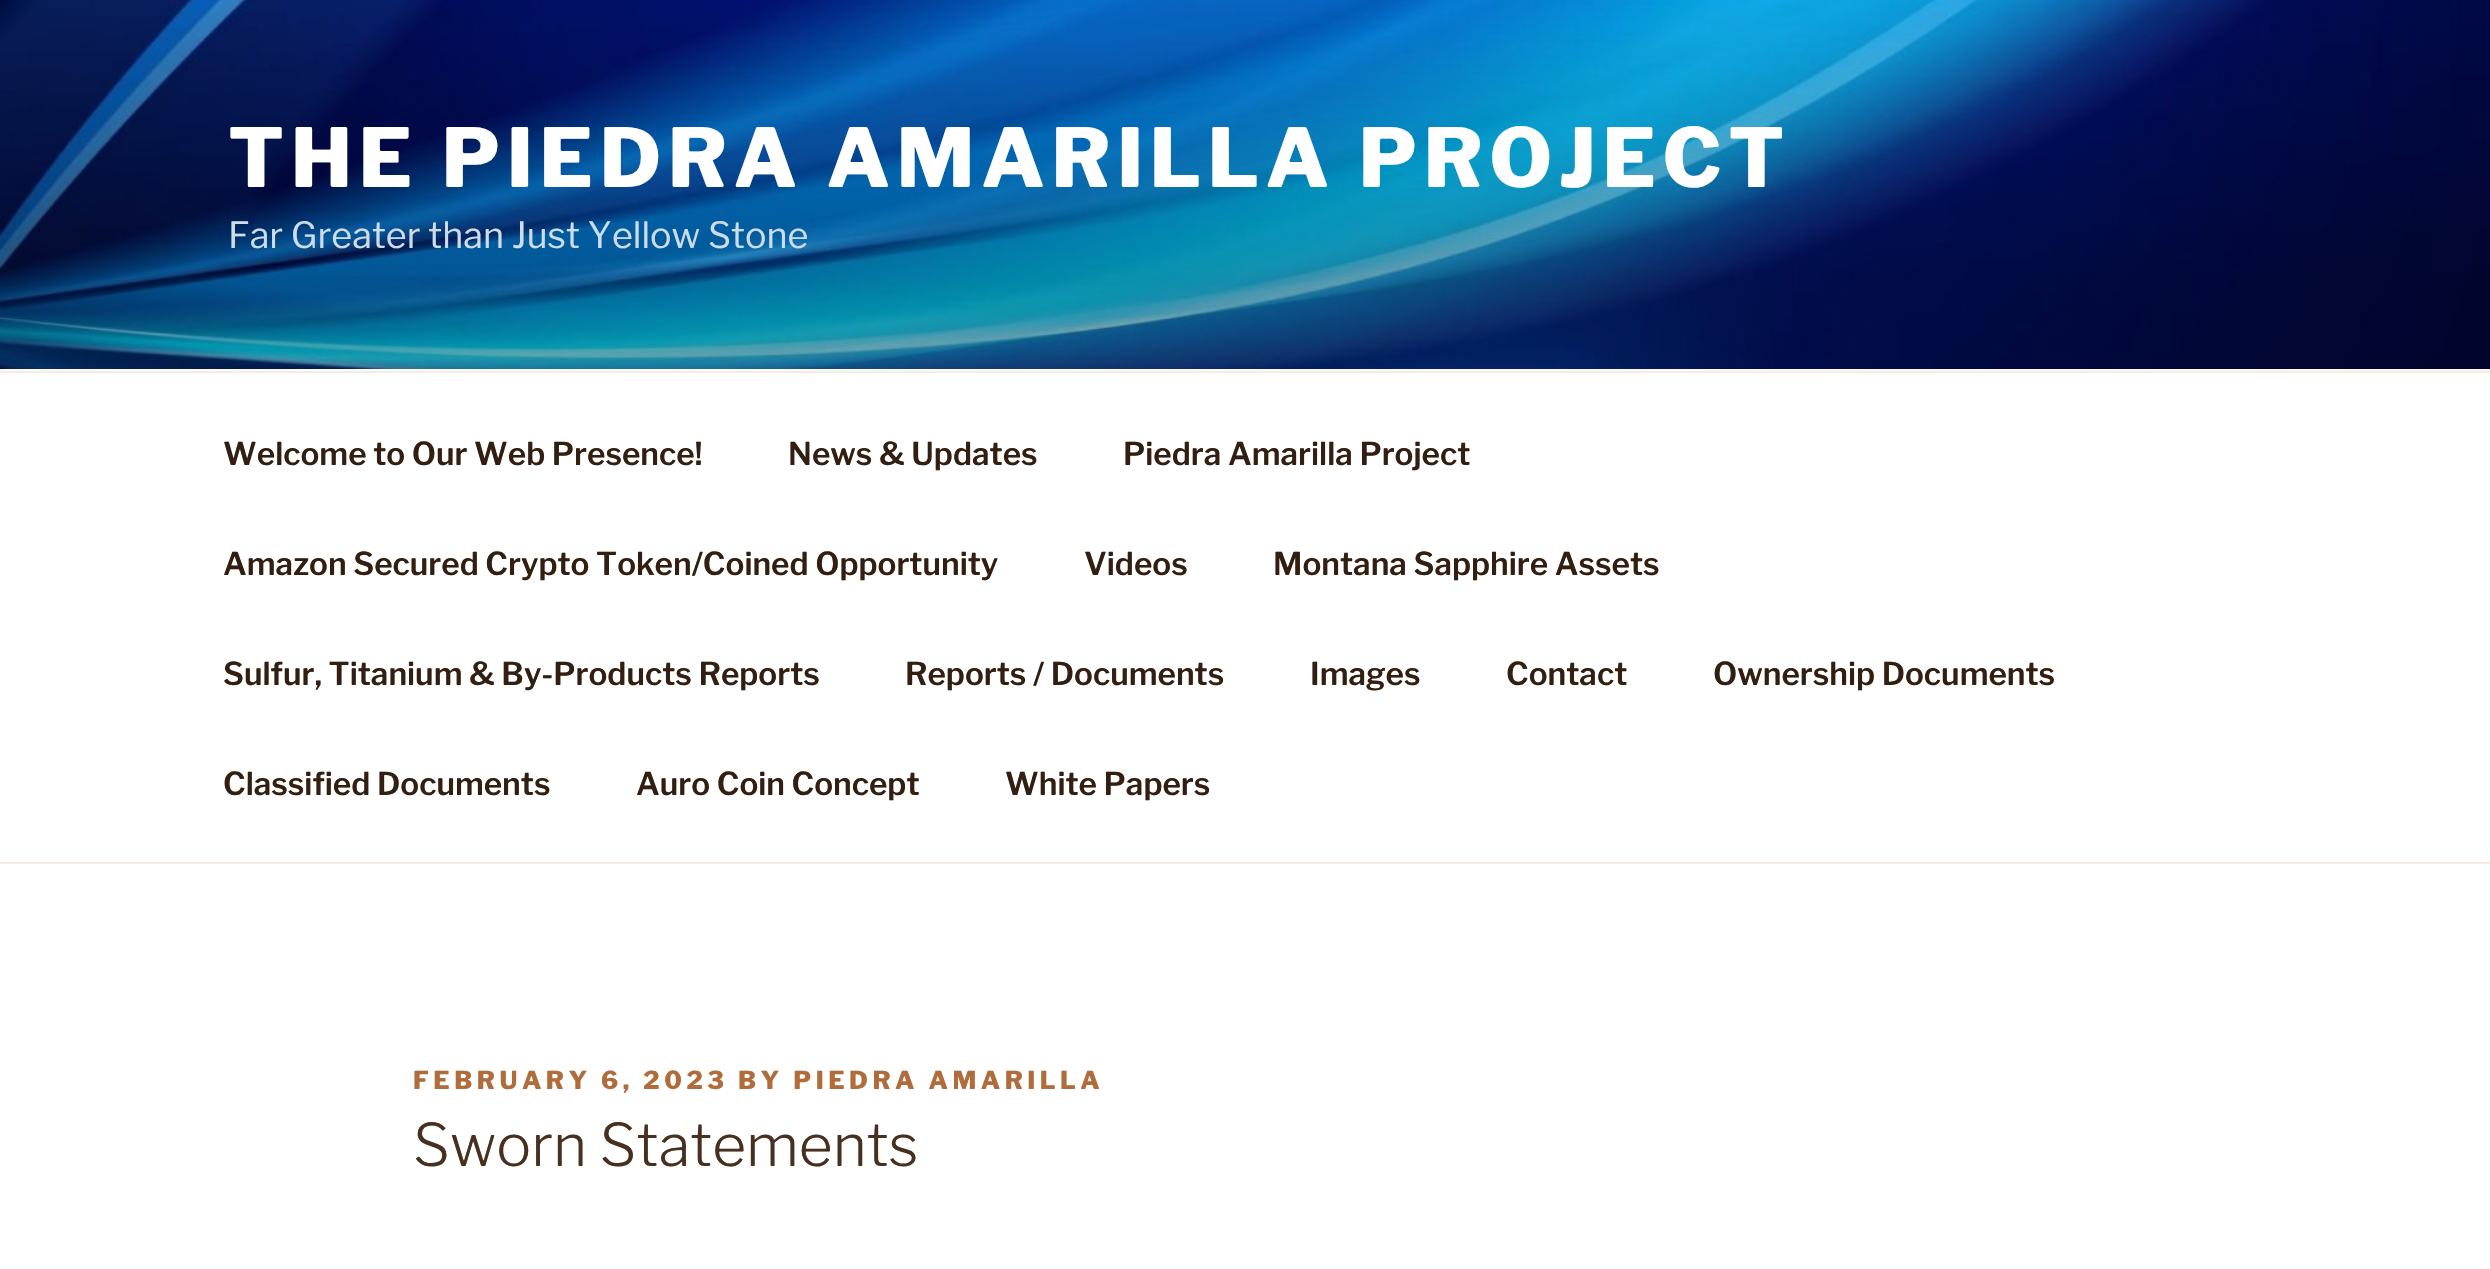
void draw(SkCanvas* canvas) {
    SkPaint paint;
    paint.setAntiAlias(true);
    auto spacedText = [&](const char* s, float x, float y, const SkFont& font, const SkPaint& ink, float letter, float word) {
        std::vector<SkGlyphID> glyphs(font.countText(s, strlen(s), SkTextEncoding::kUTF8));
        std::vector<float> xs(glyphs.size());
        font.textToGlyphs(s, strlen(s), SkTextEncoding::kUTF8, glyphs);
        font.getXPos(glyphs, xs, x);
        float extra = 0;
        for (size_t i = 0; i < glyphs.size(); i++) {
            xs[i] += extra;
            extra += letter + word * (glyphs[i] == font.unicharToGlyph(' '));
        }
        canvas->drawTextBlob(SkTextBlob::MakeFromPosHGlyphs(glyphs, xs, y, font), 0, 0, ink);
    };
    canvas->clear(0xFFFFFFFF);
    paint.setColor(0xFFFCFAF7);
    canvas->drawRect(SkRect::MakeXYWH(0, 369, 2490, 2), paint);
    canvas->drawImageRect(SkImages::DeferredFromEncodedData(SkData::MakeFromFileName("img1.png")), SkRect::MakeXYWH(0, 0, 2490, 369), SkSamplingOptions());
    SkFont font1(fontMgr->matchFamilyStyle("Libre Franklin", SkFontStyle(100, SkFontStyle::kNormal_Width, SkFontStyle::kUpright_Slant)), 81);
    font1.setSubpixel(true);
    paint.setColor(0xFFFFFFFF);
    spacedText("THE PIEDRA AMARILLA PROJECT", 228, 187, font1, paint, 6.5f, 0);
    SkFont font2(fontMgr->matchFamilyStyle("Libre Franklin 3", SkFontStyle(100, SkFontStyle::kNormal_Width, SkFontStyle::kUpright_Slant)), 36);
    font2.setSubpixel(true);
    paint.setColor(0xFFCDDCE8);
    canvas->drawString("Far Greater than Just Yellow Stone", 228, 248, font2, paint);
    paint.setColor(0xFFF6ECE4);
    canvas->drawRect(SkRect::MakeXYWH(0, 371, 2490, 2), paint);
    canvas->drawRect(SkRect::MakeXYWH(0, 862, 2490, 2), paint);
    SkFont font3(fontMgr->matchFamilyStyle("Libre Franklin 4", SkFontStyle(100, SkFontStyle::kNormal_Width, SkFontStyle::kUpright_Slant)), 31.5f);
    font3.setSubpixel(true);
    paint.setColor(0xFF321F11);
    canvas->drawString("Welcome to Our Web Presence!", 223, 465, font3, paint);
    canvas->drawString("News & Updates", 788, 465, font3, paint);
    canvas->drawString("Piedra Amarilla Project", 1123, 465, font3, paint);
    canvas->drawString("Amazon Secured Crypto Token/Coined Opportunity", 223, 575, font3, paint);
    canvas->drawString("Videos", 1084, 575, font3, paint);
    canvas->drawString("Montana Sapphire Assets", 1273, 575, font3, paint);
    canvas->drawString("Sulfur, Titanium & By-Products Reports", 223, 685, font3, paint);
    canvas->drawString("Reports / Documents", 905, 685, font3, paint);
    canvas->drawString("Images", 1310, 685, font3, paint);
    canvas->drawString("Contact", 1506, 685, font3, paint);
    canvas->drawString("Ownership Documents", 1713, 685, font3, paint);
    canvas->drawString("Classified Documents", 223, 795, font3, paint);
    canvas->drawString("Auro Coin Concept", 636, 795, font3, paint);
    canvas->drawString("White Papers", 1005, 795, font3, paint);
    SkFont font4(fontMgr->matchFamilyStyle("Libre Franklin", SkFontStyle(100, SkFontStyle::kNormal_Width, SkFontStyle::kUpright_Slant)), 24.75f);
    font4.setSubpixel(true);
    paint.setColor(0xFFB06D3B);
    spacedText("FEBRUARY 6, 2023 BY PIEDRA AMARILLA", 413, 1089, font4, paint, 4.5f, 0);
    SkFont font5(fontMgr->matchFamilyStyle("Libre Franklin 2", SkFontStyle(100, SkFontStyle::kNormal_Width, SkFontStyle::kUpright_Slant)), 58.5f);
    font5.setSubpixel(true);
    paint.setColor(0xFF47301F);
    canvas->drawString("Sworn Statements", 413, 1166, font5, paint);
}
